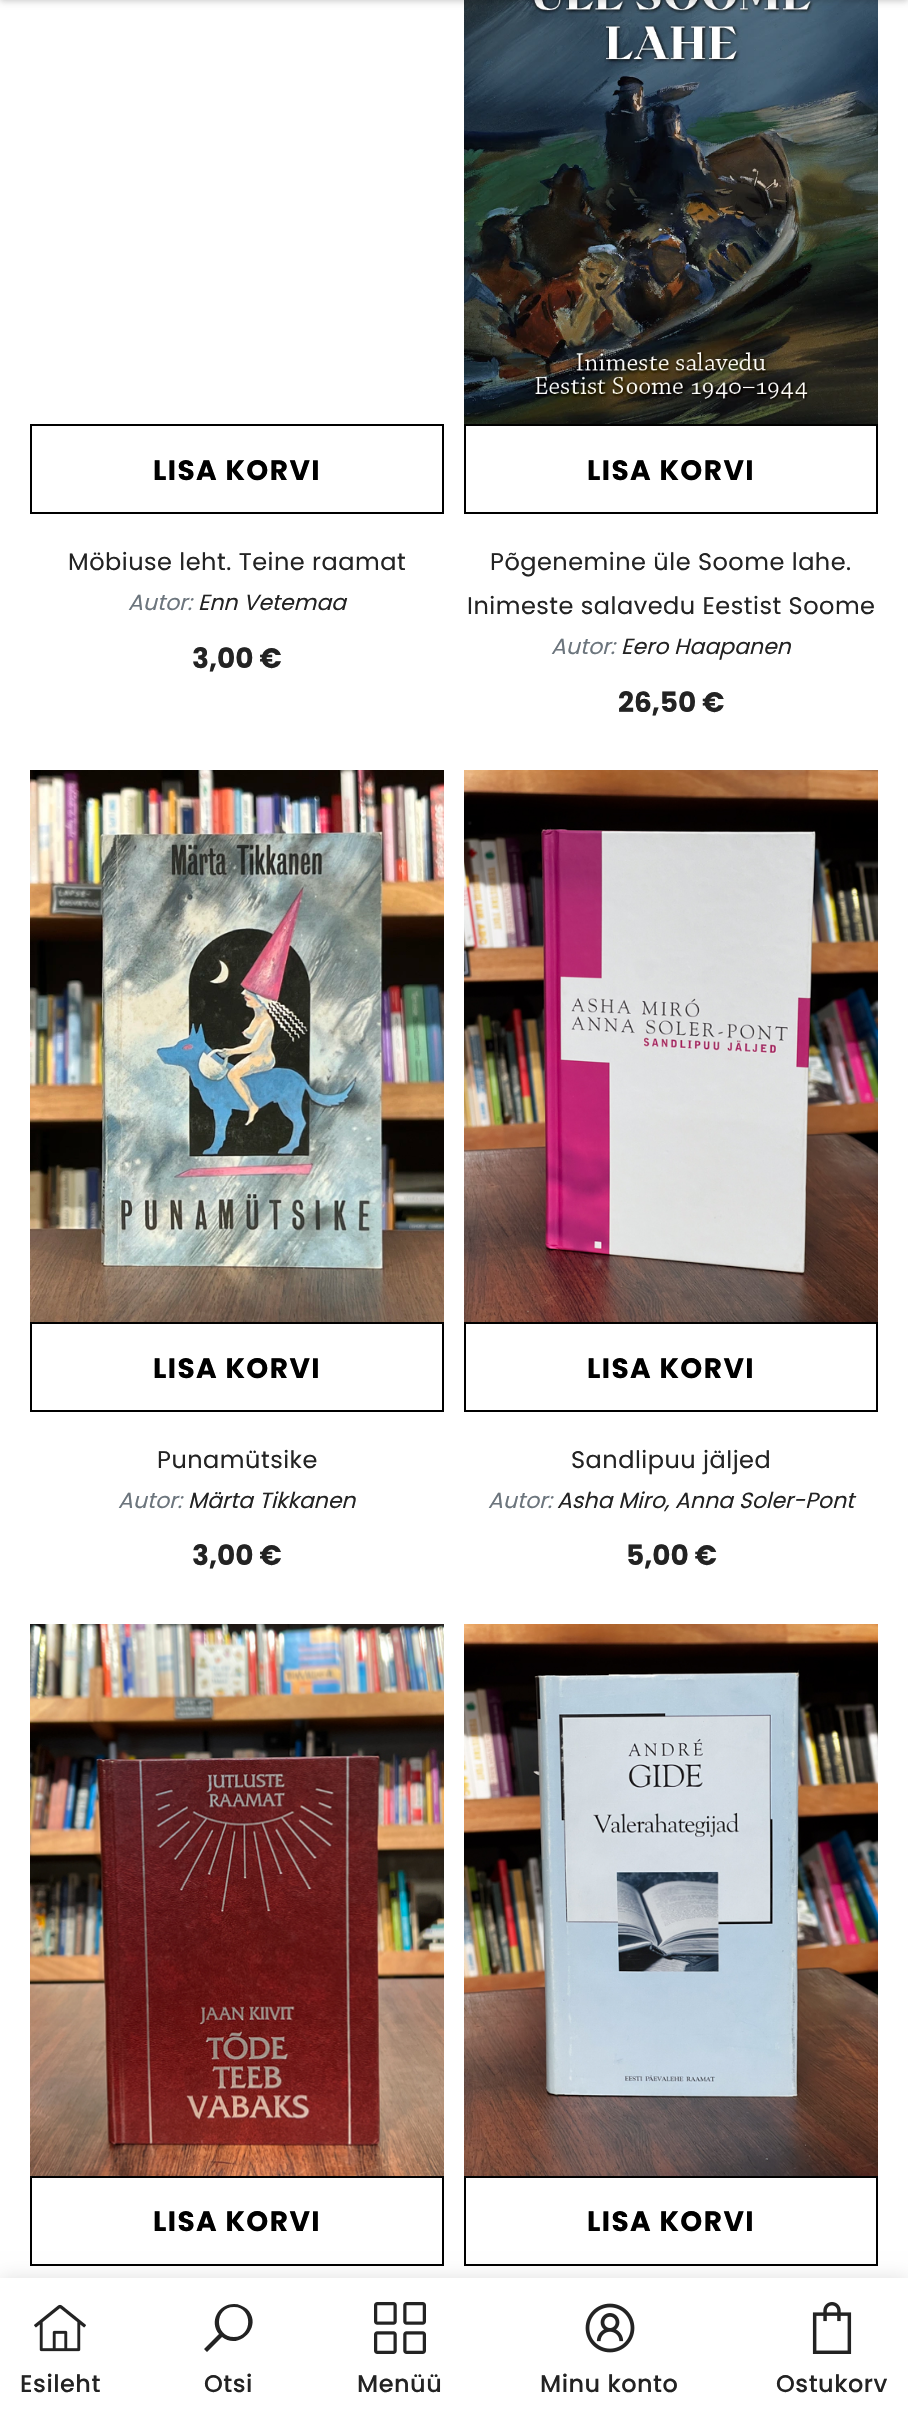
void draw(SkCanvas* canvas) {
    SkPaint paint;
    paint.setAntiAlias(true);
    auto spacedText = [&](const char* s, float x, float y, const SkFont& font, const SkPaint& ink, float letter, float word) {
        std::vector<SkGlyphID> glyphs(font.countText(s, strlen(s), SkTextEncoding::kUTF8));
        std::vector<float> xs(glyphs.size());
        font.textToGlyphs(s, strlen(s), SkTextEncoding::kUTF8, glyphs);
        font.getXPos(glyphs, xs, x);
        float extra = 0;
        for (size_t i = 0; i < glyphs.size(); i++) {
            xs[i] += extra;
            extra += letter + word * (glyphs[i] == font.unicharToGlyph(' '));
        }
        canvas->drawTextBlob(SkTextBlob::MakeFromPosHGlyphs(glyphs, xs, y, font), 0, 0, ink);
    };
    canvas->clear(0xFFFFFFFF);
    canvas->drawImageRect(SkImages::DeferredFromEncodedData(SkData::MakeFromFileName("img1.png")), SkRect::MakeXYWH(464, 0, 414, 424), SkSamplingOptions());
    paint.setColor(0x1F000000);
    paint.setMaskFilter(SkMaskFilter::MakeBlur(kNormal_SkBlurStyle, 3));
    canvas->drawRect(SkRect::MakeXYWH(0, -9, 908, 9), paint);
    paint.setMaskFilter(nullptr);
    paint.setColor(0x1A000000);
    paint.setMaskFilter(SkMaskFilter::MakeBlur(kNormal_SkBlurStyle, 3));
    canvas->drawRect(SkRect::MakeXYWH(0, -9, 908, 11), paint);
    paint.setMaskFilter(nullptr);
    paint.setStyle(SkPaint::kStroke_Style);
    paint.setStrokeWidth(2);
    paint.setColor(0xFF000000);
    canvas->drawRect(SkRect::MakeXYWH(31, 425, 412, 88), paint);
    SkFont font1(fontMgr->matchFamilyStyle("Poppins", SkFontStyle::Bold()), 28);
    font1.setSubpixel(true);
    paint.setStyle(SkPaint::kFill_Style);
    spacedText("LISA KORVI", 153, 480, font1, paint, 1.4f, 0);
    SkFont font2(fontMgr->matchFamilyStyle("Poppins", SkFontStyle::Normal()), 24);
    font2.setSubpixel(true);
    paint.setColor(0xFF232323);
    spacedText("Möbiuse leht. Teine raamat", 68, 570, font2, paint, 0.5f, 0);
    SkFont font3(fontMgr->matchFamilyStyle("Poppins", SkFontStyle::Italic()), 22);
    font3.setSubpixel(true);
    paint.setColor(0xFF6C757D);
    canvas->drawString("Autor:", 128, 610, font3, paint);
    paint.setColor(0xFF232323);
    canvas->drawString("Enn Vetemaa", 198, 610, font3, paint);
    canvas->drawString("3,00 €", 192, 668, font1, paint);
    paint.setStyle(SkPaint::kStroke_Style);
    paint.setColor(0xFF000000);
    canvas->drawRect(SkRect::MakeXYWH(465, 425, 412, 88), paint);
    paint.setStyle(SkPaint::kFill_Style);
    spacedText("LISA KORVI", 587, 480, font1, paint, 1.4f, 0);
    paint.setColor(0xFF232323);
    spacedText("Põgenemine üle Soome lahe.", 490, 570, font2, paint, 0.5f, 0);
    spacedText("Inimeste salavedu Eestist Soome", 467, 614, font2, paint, 0.5f, 0);
    paint.setColor(0xFF6C757D);
    canvas->drawString("Autor:", 551, 654, font3, paint);
    paint.setColor(0xFF232323);
    canvas->drawString("Eero Haapanen", 621, 654, font3, paint);
    canvas->drawString("26,50 €", 618, 712, font1, paint);
    canvas->drawImageRect(SkImages::DeferredFromEncodedData(SkData::MakeFromFileName("img2.png")), SkRect::MakeXYWH(30, 770, 414, 552), SkSamplingOptions());
    paint.setStyle(SkPaint::kStroke_Style);
    paint.setColor(0xFF000000);
    canvas->drawRect(SkRect::MakeXYWH(31, 1323, 412, 88), paint);
    paint.setStyle(SkPaint::kFill_Style);
    spacedText("LISA KORVI", 153, 1378, font1, paint, 1.4f, 0);
    paint.setColor(0xFF232323);
    spacedText("Punamütsike", 157, 1468, font2, paint, 0.5f, 0);
    paint.setColor(0xFF6C757D);
    canvas->drawString("Autor:", 118, 1508, font3, paint);
    paint.setColor(0xFF232323);
    canvas->drawString("Märta Tikkanen", 188, 1508, font3, paint);
    canvas->drawString("3,00 €", 192, 1565, font1, paint);
    canvas->drawImageRect(SkImages::DeferredFromEncodedData(SkData::MakeFromFileName("img3.png")), SkRect::MakeXYWH(464, 770, 414, 552), SkSamplingOptions());
    paint.setStyle(SkPaint::kStroke_Style);
    paint.setColor(0xFF000000);
    canvas->drawRect(SkRect::MakeXYWH(465, 1323, 412, 88), paint);
    paint.setStyle(SkPaint::kFill_Style);
    spacedText("LISA KORVI", 587, 1378, font1, paint, 1.4f, 0);
    paint.setColor(0xFF232323);
    spacedText("Sandlipuu jäljed", 571, 1468, font2, paint, 0.5f, 0);
    paint.setColor(0xFF6C757D);
    canvas->drawString("Autor:", 488, 1508, font3, paint);
    paint.setColor(0xFF232323);
    canvas->drawString("Asha Miro, Anna Soler-Pont", 557, 1508, font3, paint);
    canvas->drawString("5,00 €", 626, 1565, font1, paint);
    canvas->drawImageRect(SkImages::DeferredFromEncodedData(SkData::MakeFromFileName("img4.png")), SkRect::MakeXYWH(30, 1624, 414, 552), SkSamplingOptions());
    paint.setStyle(SkPaint::kStroke_Style);
    paint.setColor(0xFF000000);
    canvas->drawRect(SkRect::MakeXYWH(31, 2177, 412, 88), paint);
    paint.setStyle(SkPaint::kFill_Style);
    spacedText("LISA KORVI", 153, 2231, font1, paint, 1.4f, 0);
    canvas->drawImageRect(SkImages::DeferredFromEncodedData(SkData::MakeFromFileName("img5.png")), SkRect::MakeXYWH(464, 1624, 414, 552), SkSamplingOptions());
    paint.setStyle(SkPaint::kStroke_Style);
    canvas->drawRect(SkRect::MakeXYWH(465, 2177, 412, 88), paint);
    paint.setStyle(SkPaint::kFill_Style);
    spacedText("LISA KORVI", 587, 2231, font1, paint, 1.4f, 0);
    paint.setColor(0x1F000000);
    paint.setMaskFilter(SkMaskFilter::MakeBlur(kNormal_SkBlurStyle, 9));
    canvas->drawRect(SkRect::MakeXYWH(0, 2278, 908, 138), paint);
    paint.setMaskFilter(nullptr);
    paint.setColor(0xFFFFFFFF);
    canvas->drawRect(SkRect::MakeXYWH(0, 2278, 908, 137), paint);
    canvas->drawImageRect(SkImages::DeferredFromEncodedData(SkData::MakeFromFileName("img6.png")), SkRect::MakeXYWH(34, 2304, 52, 48), SkSamplingOptions());
    SkFont font4(fontMgr->matchFamilyStyle("Poppins", SkFontStyle(500, SkFontStyle::kNormal_Width, SkFontStyle::kUpright_Slant)), 24);
    font4.setSubpixel(true);
    paint.setColor(0xFF232323);
    spacedText("Esileht", 20, 2392, font4, paint, 0.5f, 0);
    canvas->drawPath(SkPathBuilder().moveTo(234, 2304).cubicTo(218, 2304, 209, 2322, 219, 2334).lineTo(204, 2349).lineTo(207, 2352).lineTo(222, 2337).cubicTo(239, 2351, 264, 2326, 247, 2309).cubicTo(243, 2306, 239, 2304, 234, 2304).close().moveTo(234, 2307).cubicTo(253, 2307, 253, 2337, 234, 2337).cubicTo(214, 2337, 214, 2307, 234, 2307).close().detach(), paint);
    spacedText("Otsi", 204, 2392, font4, paint, 0.5f, 0);
    canvas->drawImageRect(SkImages::DeferredFromEncodedData(SkData::MakeFromFileName("img7.png")), SkRect::MakeXYWH(374, 2302, 52, 52), SkSamplingOptions());
    spacedText("Menüü", 357, 2392, font4, paint, 0.5f, 0);
    canvas->drawImageRect(SkImages::DeferredFromEncodedData(SkData::MakeFromFileName("img8.png")), SkRect::MakeXYWH(585, 2303, 50, 50), SkSamplingOptions());
    spacedText("Minu konto", 540, 2392, font4, paint, 0.5f, 0);
    canvas->drawImageRect(SkImages::DeferredFromEncodedData(SkData::MakeFromFileName("img9.png")), SkRect::MakeXYWH(812, 2302, 40, 52), SkSamplingOptions());
    spacedText("Ostukorv", 776, 2392, font4, paint, 0.5f, 0);
}
